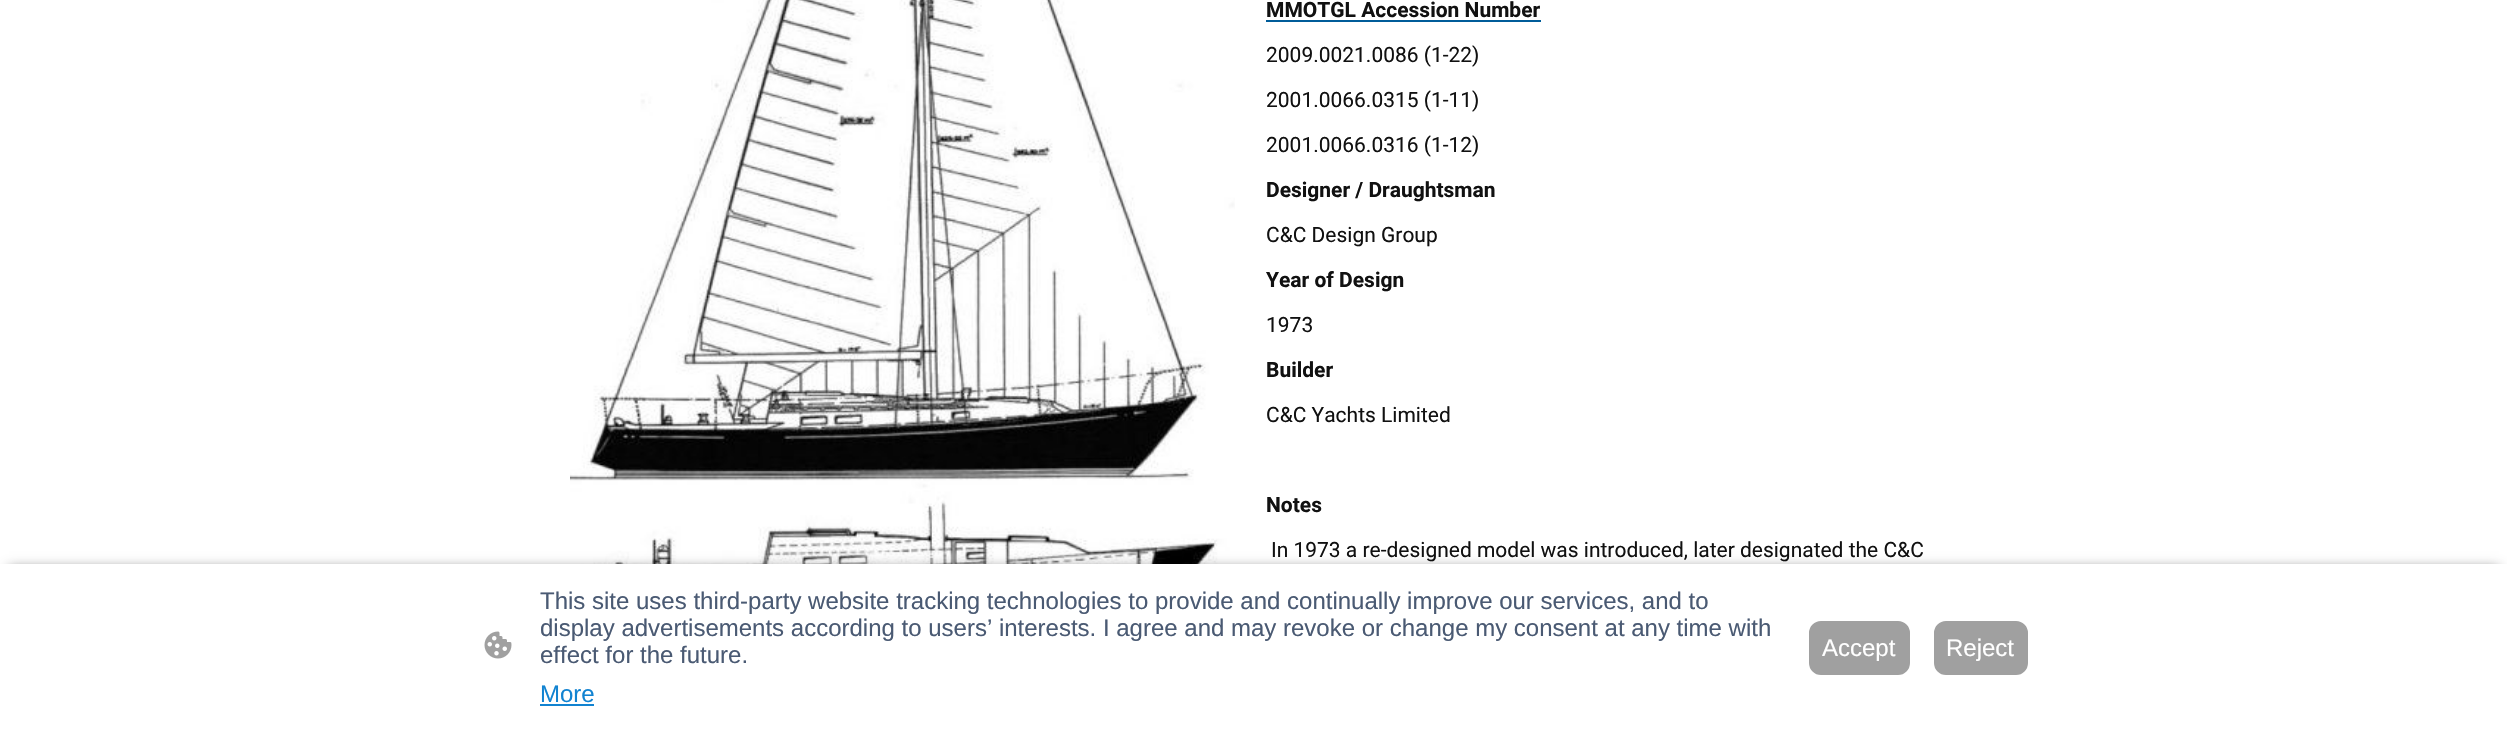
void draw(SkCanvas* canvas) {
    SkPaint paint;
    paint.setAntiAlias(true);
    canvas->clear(0xFFFFFFFF);
    canvas->drawImageRect(SkImages::DeferredFromEncodedData(SkData::MakeFromFileName("img1.png")), SkRect::MakeXYWH(570, 0, 665, 564), SkSamplingOptions());
    SkFont font1(fontMgr->matchFamilyStyle("Roboto", SkFontStyle::Bold()), 21);
    font1.setSubpixel(true);
    paint.setColor(0xFF111111);
    canvas->drawString("MMOTGL Accession Number", 1266, 17, font1, paint);
    paint.setColor(0xFF005C99);
    canvas->drawRect(SkRect::MakeXYWH(1266, 20, 275, 2), paint);
    SkFont font2(fontMgr->matchFamilyStyle("Roboto", SkFontStyle::Normal()), 21);
    font2.setSubpixel(true);
    paint.setColor(0xFF111111);
    canvas->drawString("2009.0021.0086 (1-22)", 1266, 62, font2, paint);
    canvas->drawString("2001.0066.0315 (1-11)", 1266, 107, font2, paint);
    canvas->drawString("2001.0066.0316 (1-12)", 1266, 152, font2, paint);
    canvas->drawString("Designer / Draughtsman", 1266, 197, font1, paint);
    canvas->drawString("C&C Design Group", 1266, 242, font2, paint);
    canvas->drawString("Year of Design", 1266, 287, font1, paint);
    canvas->drawString("1973", 1266, 332, font2, paint);
    canvas->drawString("Builder", 1266, 377, font1, paint);
    canvas->drawString("C&C Yachts Limited", 1266, 422, font2, paint);
    canvas->drawString("Notes", 1266, 512, font1, paint);
    canvas->drawString("In 1973 a re-designed model was introduced, later designated the C&C", 1271, 557, font2, paint);
    paint.setColor(0xA1000000);
    paint.setMaskFilter(SkMaskFilter::MakeBlur(kNormal_SkBlurStyle, 6));
    canvas->drawRect(SkRect::MakeXYWH(9, 569, 2490, 150), paint);
    paint.setMaskFilter(nullptr);
    paint.setColor(0xFFFFFFFF);
    canvas->drawRect(SkRect::MakeXYWH(0, 564, 2507, 168), paint);
    canvas->drawImageRect(SkImages::DeferredFromEncodedData(SkData::MakeFromFileName("img2.png")), SkRect::MakeXYWH(484, 631, 28, 28), SkSamplingOptions());
    SkFont font3(fontMgr->matchFamilyStyle("Liberation Sans", SkFontStyle::Normal()), 24);
    font3.setSubpixel(true);
    paint.setColor(0xFF4A5A73);
    canvas->drawString("This site uses third-party website tracking technologies to provide and continually improve our services, and to", 540, 609, font3, paint);
    canvas->drawString("display advertisements according to users’ interests. I agree and may revoke or change my consent at any time with", 540, 636, font3, paint);
    canvas->drawString("effect for the future.", 540, 663, font3, paint);
    paint.setColor(0xFF1183D1);
    canvas->drawString("More", 540, 702, font3, paint);
    canvas->drawRect(SkRect::MakeXYWH(540, 704, 54, 2), paint);
    paint.setColor(0xFFA0A0A0);
    canvas->drawRoundRect(SkRect::MakeXYWH(1810, 622, 99, 52), 11, 11, paint);
    paint.setStyle(SkPaint::kStroke_Style);
    paint.setStrokeWidth(2);
    canvas->drawRoundRect(SkRect::MakeXYWH(1810, 622, 99, 52), 11, 11, paint);
    paint.setStyle(SkPaint::kFill_Style);
    paint.setColor(0xFFFFFFFF);
    canvas->drawString("Accept", 1822, 656, font3, paint);
    paint.setColor(0xFFA0A0A0);
    canvas->drawRoundRect(SkRect::MakeXYWH(1935, 622, 92, 52), 11, 11, paint);
    paint.setStyle(SkPaint::kStroke_Style);
    canvas->drawRoundRect(SkRect::MakeXYWH(1935, 622, 92, 52), 11, 11, paint);
    paint.setStyle(SkPaint::kFill_Style);
    paint.setColor(0xFFFFFFFF);
    canvas->drawString("Reject", 1946, 656, font3, paint);
}
